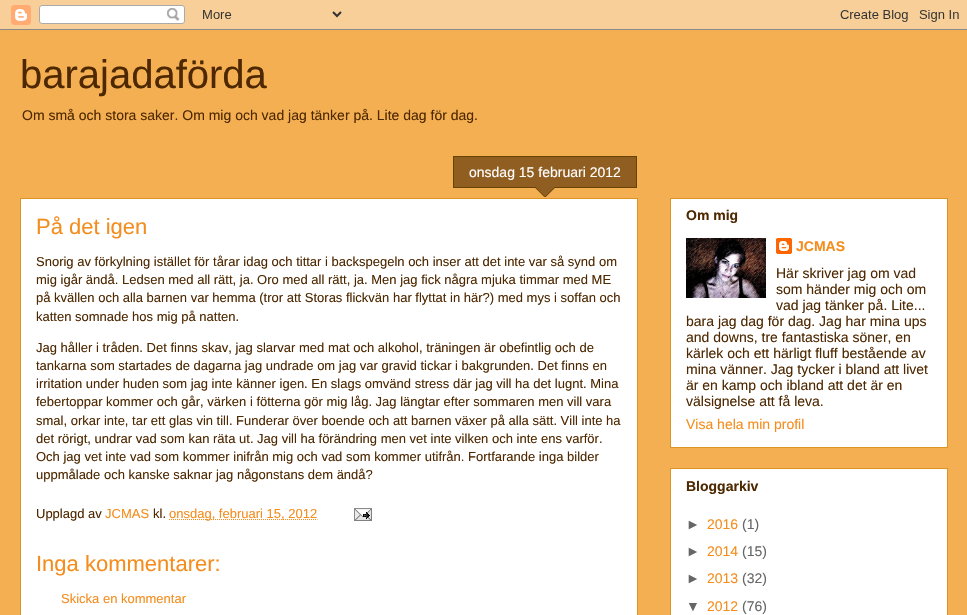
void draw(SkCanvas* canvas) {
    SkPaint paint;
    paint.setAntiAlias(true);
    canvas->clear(0xFFF4AF52);
    canvas->drawImageRect(SkImages::DeferredFromEncodedData(SkData::MakeFromFileName("img1.png")), SkRect::MakeXYWH(0, 0, 967, 30), SkSamplingOptions());
    SkFont font1(fontMgr->matchFamilyStyle("Liberation Sans", SkFontStyle::Normal()), 40);
    font1.setSubpixel(true);
    paint.setColor(0xFF4E2800);
    canvas->drawString("barajadaförda", 20, 88, font1, paint);
    SkFont font2(fontMgr->matchFamilyStyle("Liberation Sans", SkFontStyle::Normal()), 14);
    font2.setSubpixel(true);
    canvas->drawString("Om små och stora saker. Om mig och vad jag tänker på. Lite dag för dag.", 22, 120, font2, paint);
    paint.setColor(0xFFFFFFFF);
    canvas->drawRect(SkRect::MakeXYWH(20.5f, 198.5f, 617, 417), paint);
    paint.setStyle(SkPaint::kStroke_Style);
    paint.setStrokeWidth(1);
    paint.setColor(0xFFDC9522);
    canvas->drawRect(SkRect::MakeXYWH(20.5f, 198.5f, 617, 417), paint);
    canvas->drawImageRect(SkImages::DeferredFromEncodedData(SkData::MakeFromFileName("img2.png")), SkRect::MakeXYWH(453, 157, 184, 40), SkSamplingOptions());
    paint.setStyle(SkPaint::kFill_Style);
    paint.setColor(0xFF664400);
    canvas->drawRect(SkRect::MakeXYWH(453, 156, 184, 1), paint);
    canvas->drawRect(SkRect::MakeXYWH(636, 157, 1, 30), paint);
    canvas->drawRect(SkRect::MakeXYWH(453, 157, 1, 30), paint);
    paint.setColor(0xFFFFFFFF);
    canvas->drawString("onsdag 15 februari 2012", 469, 177, font2, paint);
    SkFont font3(fontMgr->matchFamilyStyle("Liberation Sans", SkFontStyle::Normal()), 22);
    font3.setSubpixel(true);
    paint.setColor(0xFFF48D1D);
    canvas->drawString("På det igen", 36, 234, font3, paint);
    SkFont font4(fontMgr->matchFamilyStyle("Liberation Sans", SkFontStyle::Normal()), 13);
    font4.setSubpixel(true);
    paint.setColor(0xFF4E2800);
    canvas->drawString("Snorig av förkylning istället för tårar idag och tittar i backspegeln och inser att det inte var så synd om", 36, 266, font4, paint);
    canvas->drawString("mig igår ändå. Ledsen med all rätt, ja. Oro med all rätt, ja. Men jag fick några mjuka timmar med ME", 36, 284, font4, paint);
    canvas->drawString("på kvällen och alla barnen var hemma (tror att Storas flickvän har flyttat in här?) med mys i soffan och", 36, 302, font4, paint);
    canvas->drawString("katten somnade hos mig på natten.", 36, 321, font4, paint);
    canvas->drawString("Jag håller i tråden. Det finns skav, jag slarvar med mat och alkohol, träningen är obefintlig och de", 36, 352, font4, paint);
    canvas->drawString("tankarna som startades de dagarna jag undrade om jag var gravid tickar i bakgrunden. Det finns en", 36, 370, font4, paint);
    canvas->drawString("irritation under huden som jag inte känner igen. En slags omvänd stress där jag vill ha det lugnt. Mina", 36, 388, font4, paint);
    canvas->drawString("febertoppar kommer och går, värken i fötterna gör mig låg. Jag längtar efter sommaren men vill vara", 36, 406, font4, paint);
    canvas->drawString("smal, orkar inte, tar ett glas vin till. Funderar över boende och att barnen växer på alla sätt. Vill inte ha", 36, 425, font4, paint);
    canvas->drawString("det rörigt, undrar vad som kan räta ut. Jag vill ha förändring men vet inte vilken och inte ens varför.", 36, 443, font4, paint);
    canvas->drawString("Och jag vet inte vad som kommer inifrån mig och vad som kommer utifrån. Fortfarande inga bilder", 36, 461, font4, paint);
    canvas->drawString("uppmålade och kanske saknar jag någonstans dem ändå?", 36, 479, font4, paint);
    canvas->drawString("Upplagd av", 36, 518, font4, paint);
    paint.setColor(0xFFF48D1D);
    canvas->drawString("JCMAS", 105, 518, font4, paint);
    paint.setColor(0xFF4E2800);
    canvas->drawString("kl.", 153, 518, font4, paint);
    paint.setStyle(SkPaint::kStroke_Style);
    paint.setColor(0xFFF48D1D);
    paint.setPathEffect(SkDashPathEffect::Make({{1, 1}}, 0));
    canvas->drawPath(SkPathBuilder().moveTo(169, 519.5f).lineTo(317.5f, 519.5f).detach(), paint);
    paint.setPathEffect(nullptr);
    paint.setStyle(SkPaint::kFill_Style);
    canvas->drawString("onsdag, februari 15, 2012", 169, 518, font4, paint);
    canvas->drawImageRect(SkImages::DeferredFromEncodedData(SkData::MakeFromFileName("img3.png")), SkRect::MakeXYWH(354, 508, 18, 13), SkSamplingOptions());
    canvas->drawString("Inga kommentarer:", 36, 571, font3, paint);
    canvas->drawString("Skicka en kommentar", 61, 603, font4, paint);
    paint.setColor(0xFFFFFFFF);
    canvas->drawRect(SkRect::MakeXYWH(670.5f, 198.5f, 277, 249), paint);
    paint.setStyle(SkPaint::kStroke_Style);
    paint.setColor(0xFFDC9522);
    canvas->drawRect(SkRect::MakeXYWH(670.5f, 198.5f, 277, 249), paint);
    SkFont font5(fontMgr->matchFamilyStyle("Liberation Sans", SkFontStyle::Bold()), 14);
    font5.setSubpixel(true);
    paint.setStyle(SkPaint::kFill_Style);
    paint.setColor(0xFF4E2800);
    canvas->drawString("Om mig", 686, 220, font5, paint);
    canvas->drawImageRect(SkImages::DeferredFromEncodedData(SkData::MakeFromFileName("img4.png")), SkRect::MakeXYWH(686, 238, 80, 60), SkSamplingOptions());
    canvas->drawImageRect(SkImages::DeferredFromEncodedData(SkData::MakeFromFileName("img5.png")), SkRect::MakeXYWH(776, 238, 16, 16), SkSamplingOptions());
    paint.setColor(0xFFF48D1D);
    canvas->drawString("JCMAS", 796, 251, font5, paint);
    paint.setColor(0xFF4E2800);
    canvas->drawString("Här skriver jag om vad", 776, 278, font2, paint);
    canvas->drawString("som händer mig och om", 776, 294, font2, paint);
    canvas->drawString("vad jag tänker på. Lite...", 776, 310, font2, paint);
    canvas->drawString("bara jag dag för dag. Jag har mina ups", 686, 326, font2, paint);
    canvas->drawString("and downs, tre fantastiska söner, en", 686, 342, font2, paint);
    canvas->drawString("kärlek och ett härligt fluff bestående av", 686, 358, font2, paint);
    canvas->drawString("mina vänner. Jag tycker i bland att livet", 686, 374, font2, paint);
    canvas->drawString("är en kamp och ibland att det är en", 686, 390, font2, paint);
    canvas->drawString("välsignelse att få leva.", 686, 406, font2, paint);
    paint.setColor(0xFFF48D1D);
    canvas->drawString("Visa hela min profil", 686, 429, font2, paint);
    paint.setColor(0xFFFFFFFF);
    canvas->drawRect(SkRect::MakeXYWH(670.5f, 468.5f, 277, 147), paint);
    paint.setStyle(SkPaint::kStroke_Style);
    paint.setColor(0xFFDC9522);
    canvas->drawRect(SkRect::MakeXYWH(670.5f, 468.5f, 277, 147), paint);
    paint.setStyle(SkPaint::kFill_Style);
    paint.setColor(0xFF4E2800);
    canvas->drawString("Bloggarkiv", 686, 491, font5, paint);
    paint.setColor(0xFF666666);
    canvas->drawString("►", 686, 529, font2, paint);
    paint.setColor(0xFFF48D1D);
    canvas->drawString("2016", 707, 529, font2, paint);
    paint.setColor(0xFF666666);
    canvas->drawString("(1)", 742, 529, font2, paint);
    canvas->drawString("►", 686, 556, font2, paint);
    paint.setColor(0xFFF48D1D);
    canvas->drawString("2014", 707, 556, font2, paint);
    paint.setColor(0xFF666666);
    canvas->drawString("(15)", 742, 556, font2, paint);
    canvas->drawString("►", 686, 583, font2, paint);
    paint.setColor(0xFFF48D1D);
    canvas->drawString("2013", 707, 583, font2, paint);
    paint.setColor(0xFF666666);
    canvas->drawString("(32)", 742, 583, font2, paint);
    canvas->drawString("▼", 686, 611, font2, paint);
    paint.setColor(0xFFF48D1D);
    canvas->drawString("2012", 707, 611, font2, paint);
    paint.setColor(0xFF666666);
    canvas->drawString("(76)", 742, 611, font2, paint);
}
